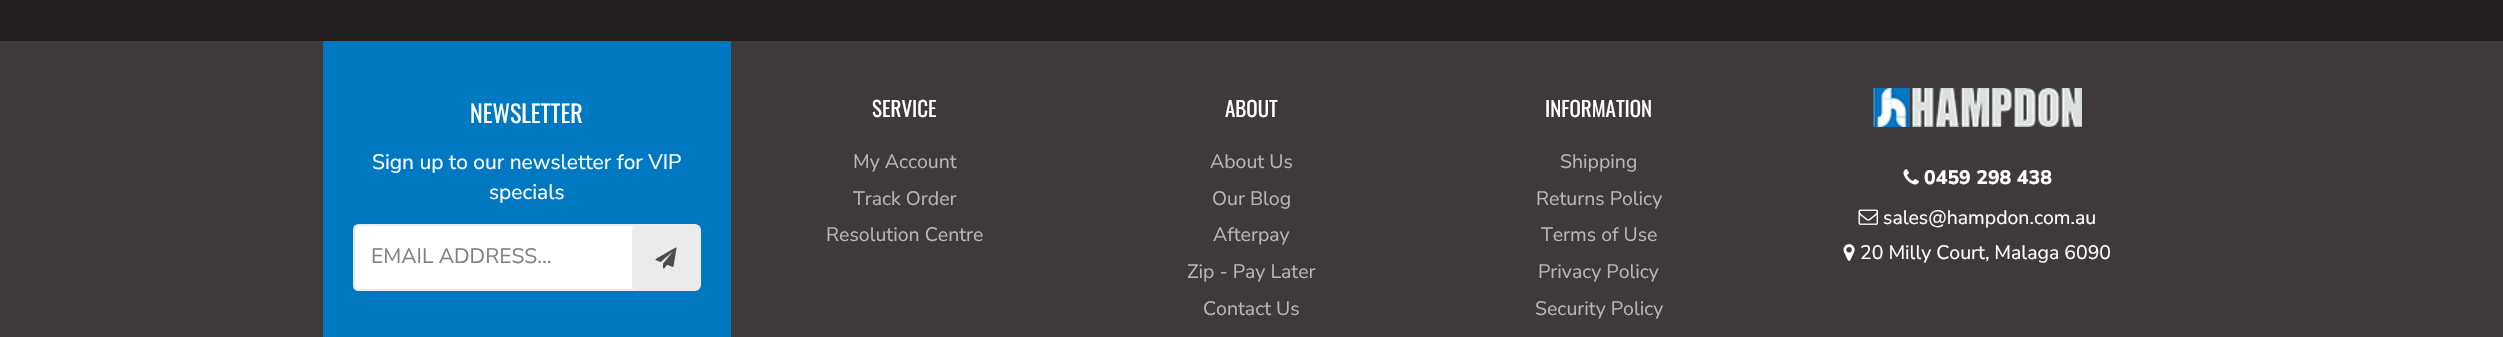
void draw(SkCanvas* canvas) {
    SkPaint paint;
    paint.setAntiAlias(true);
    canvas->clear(0xFF231F20);
    paint.setColor(0xFF3E3A3B);
    canvas->drawRect(SkRect::MakeXYWH(0, 41, 2503, 296), paint);
    paint.setColor(0xFF0079C2);
    canvas->drawRect(SkRect::MakeXYWH(323, 41, 408, 296), paint);
    SkFont font1(fontMgr->matchFamilyStyle("Oswald", SkFontStyle::Normal()), 24);
    font1.setSubpixel(true);
    paint.setColor(0xFFFFFFFF);
    canvas->drawString("NEWSLETTER", 470, 123, font1, paint);
    SkFont font2(fontMgr->matchFamilyStyle("Nunito Sans", SkFontStyle::Normal()), 21);
    font2.setSubpixel(true);
    canvas->drawString("Sign up to our newsletter for VIP", 372, 169, font2, paint);
    canvas->drawString("specials", 489, 199, font2, paint);
    canvas->drawPath(SkPathBuilder().moveTo(359, 225).lineTo(637, 225).lineTo(637, 290).lineTo(359, 290).cubicTo(356, 290, 354, 288, 354, 285).lineTo(354, 230).cubicTo(354, 227, 356, 225, 359, 225).close().detach(), paint);
    paint.setStyle(SkPaint::kStroke_Style);
    paint.setStrokeWidth(2);
    paint.setColor(0xFFEAEAEA);
    canvas->drawPath(SkPathBuilder().moveTo(359, 225).lineTo(637, 225).lineTo(637, 290).lineTo(359, 290).cubicTo(356, 290, 354, 288, 354, 285).lineTo(354, 230).cubicTo(354, 227, 356, 225, 359, 225).close().detach(), paint);
    paint.setStyle(SkPaint::kFill_Style);
    paint.setColor(0xFF818181);
    canvas->drawString("EMAIL ADDRESS...", 371, 263, font2, paint);
    paint.setColor(0xFFEBEBEB);
    canvas->drawRoundRect(SkRect::MakeXYWH(633, 225, 67, 65), 5, 5, paint);
    paint.setStyle(SkPaint::kStroke_Style);
    canvas->drawRoundRect(SkRect::MakeXYWH(633, 225, 67, 65), 5, 5, paint);
    canvas->drawImageRect(SkImages::DeferredFromEncodedData(SkData::MakeFromFileName("img1.png")), SkRect::MakeXYWH(655, 247, 22, 22), SkSamplingOptions());
    SkFont font3(fontMgr->matchFamilyStyle("Oswald", SkFontStyle::Normal()), 21);
    font3.setSubpixel(true);
    paint.setStyle(SkPaint::kFill_Style);
    paint.setColor(0xFFFFFFFF);
    canvas->drawString("SERVICE", 872, 117, font3, paint);
    SkFont font4(fontMgr->matchFamilyStyle("Nunito Sans", SkFontStyle::Normal()), 19.5f);
    font4.setSubpixel(true);
    paint.setColor(0xFFB7B7B7);
    canvas->drawString("My Account", 853, 168, font4, paint);
    canvas->drawString("Track Order", 853, 205, font4, paint);
    canvas->drawString("Resolution Centre", 826, 241, font4, paint);
    paint.setColor(0xFFFFFFFF);
    canvas->drawString("ABOUT", 1225, 117, font3, paint);
    paint.setColor(0xFFB7B7B7);
    canvas->drawString("About Us", 1210, 168, font4, paint);
    canvas->drawString("Our Blog", 1212, 205, font4, paint);
    canvas->drawString("Afterpay", 1213, 241, font4, paint);
    canvas->drawString("Zip - Pay Later", 1187, 278, font4, paint);
    canvas->drawString("Contact Us", 1203, 315, font4, paint);
    paint.setColor(0xFFFFFFFF);
    canvas->drawString("INFORMATION", 1545, 117, font3, paint);
    paint.setColor(0xFFB7B7B7);
    canvas->drawString("Shipping", 1560, 168, font4, paint);
    canvas->drawString("Returns Policy", 1536, 205, font4, paint);
    canvas->drawString("Terms of Use", 1541, 241, font4, paint);
    canvas->drawString("Privacy Policy", 1538, 278, font4, paint);
    canvas->drawString("Security Policy", 1535, 315, font4, paint);
    canvas->drawImageRect(SkImages::DeferredFromEncodedData(SkData::MakeFromFileName("img2.png")), SkRect::MakeXYWH(1873, 88, 209, 39), SkSamplingOptions());
    canvas->drawImageRect(SkImages::DeferredFromEncodedData(SkData::MakeFromFileName("img3.png")), SkRect::MakeXYWH(1903, 169, 16, 16), SkSamplingOptions());
    SkFont font5(fontMgr->matchFamilyStyle("Nunito Sans", SkFontStyle(800, SkFontStyle::kNormal_Width, SkFontStyle::kUpright_Slant)), 19.5f);
    font5.setSubpixel(true);
    paint.setColor(0xFFFFFFFF);
    canvas->drawString("0459 298 438", 1924, 184, font5, paint);
    canvas->drawImageRect(SkImages::DeferredFromEncodedData(SkData::MakeFromFileName("img4.png")), SkRect::MakeXYWH(1858, 209, 20, 16), SkSamplingOptions());
    canvas->drawString("sales@hampdon.com.au", 1883, 224, font4, paint);
    canvas->drawImageRect(SkImages::DeferredFromEncodedData(SkData::MakeFromFileName("img5.png")), SkRect::MakeXYWH(1843, 244, 12, 17), SkSamplingOptions());
    canvas->drawString("20 Milly Court, Malaga 6090", 1860, 259, font4, paint);
}
